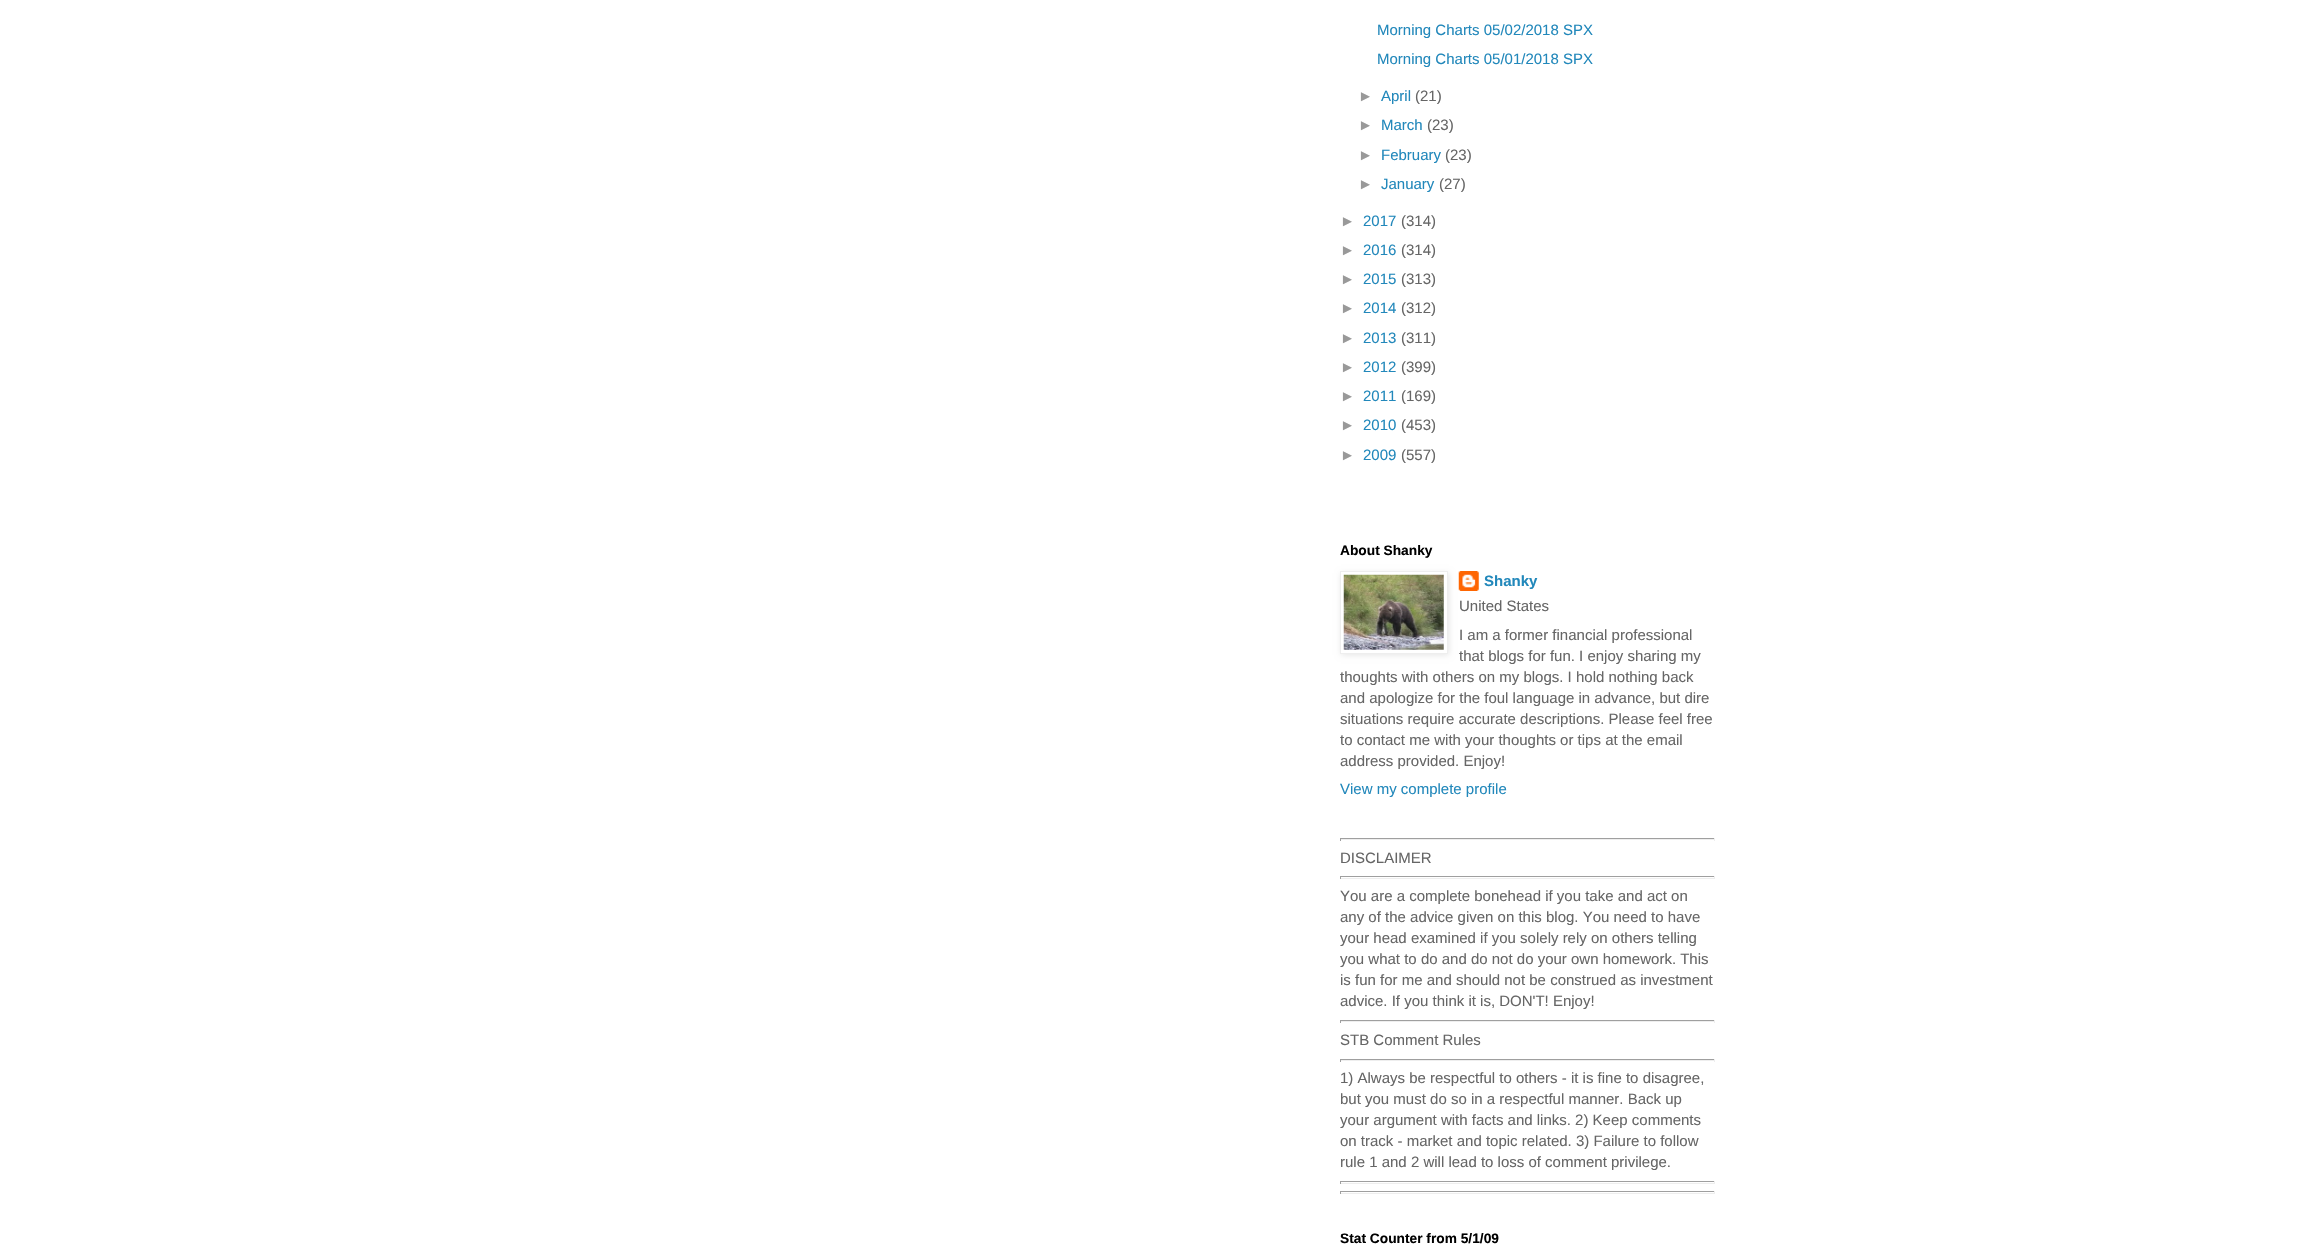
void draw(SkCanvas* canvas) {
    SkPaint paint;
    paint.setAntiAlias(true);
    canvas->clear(0xFFFFFFFF);
    SkFont font1(fontMgr->matchFamilyStyle("Liberation Sans", SkFontStyle::Normal()), 15);
    font1.setSubpixel(true);
    paint.setColor(0xFF2288BB);
    canvas->drawString("Morning Charts 05/02/2018 SPX", 1377, 35, font1, paint);
    canvas->drawString("Morning Charts 05/01/2018 SPX", 1377, 64, font1, paint);
    paint.setColor(0xFF999999);
    canvas->drawString("►", 1358, 101, font1, paint);
    paint.setColor(0xFF2288BB);
    canvas->drawString("April", 1381, 101, font1, paint);
    paint.setColor(0xFF666666);
    canvas->drawString("(21)", 1415, 101, font1, paint);
    paint.setColor(0xFF999999);
    canvas->drawString("►", 1358, 130, font1, paint);
    paint.setColor(0xFF2288BB);
    canvas->drawString("March", 1381, 130, font1, paint);
    paint.setColor(0xFF666666);
    canvas->drawString("(23)", 1427, 130, font1, paint);
    paint.setColor(0xFF999999);
    canvas->drawString("►", 1358, 160, font1, paint);
    paint.setColor(0xFF2288BB);
    canvas->drawString("February", 1381, 160, font1, paint);
    paint.setColor(0xFF666666);
    canvas->drawString("(23)", 1445, 160, font1, paint);
    paint.setColor(0xFF999999);
    canvas->drawString("►", 1358, 189, font1, paint);
    paint.setColor(0xFF2288BB);
    canvas->drawString("January", 1381, 189, font1, paint);
    paint.setColor(0xFF666666);
    canvas->drawString("(27)", 1439, 189, font1, paint);
    paint.setColor(0xFF999999);
    canvas->drawString("►", 1340, 226, font1, paint);
    paint.setColor(0xFF2288BB);
    canvas->drawString("2017", 1363, 226, font1, paint);
    paint.setColor(0xFF666666);
    canvas->drawString("(314)", 1401, 226, font1, paint);
    paint.setColor(0xFF999999);
    canvas->drawString("►", 1340, 255, font1, paint);
    paint.setColor(0xFF2288BB);
    canvas->drawString("2016", 1363, 255, font1, paint);
    paint.setColor(0xFF666666);
    canvas->drawString("(314)", 1401, 255, font1, paint);
    paint.setColor(0xFF999999);
    canvas->drawString("►", 1340, 284, font1, paint);
    paint.setColor(0xFF2288BB);
    canvas->drawString("2015", 1363, 284, font1, paint);
    paint.setColor(0xFF666666);
    canvas->drawString("(313)", 1401, 284, font1, paint);
    paint.setColor(0xFF999999);
    canvas->drawString("►", 1340, 313, font1, paint);
    paint.setColor(0xFF2288BB);
    canvas->drawString("2014", 1363, 313, font1, paint);
    paint.setColor(0xFF666666);
    canvas->drawString("(312)", 1401, 313, font1, paint);
    paint.setColor(0xFF999999);
    canvas->drawString("►", 1340, 343, font1, paint);
    paint.setColor(0xFF2288BB);
    canvas->drawString("2013", 1363, 343, font1, paint);
    paint.setColor(0xFF666666);
    canvas->drawString("(311)", 1401, 343, font1, paint);
    paint.setColor(0xFF999999);
    canvas->drawString("►", 1340, 372, font1, paint);
    paint.setColor(0xFF2288BB);
    canvas->drawString("2012", 1363, 372, font1, paint);
    paint.setColor(0xFF666666);
    canvas->drawString("(399)", 1401, 372, font1, paint);
    paint.setColor(0xFF999999);
    canvas->drawString("►", 1340, 401, font1, paint);
    paint.setColor(0xFF2288BB);
    canvas->drawString("2011", 1363, 401, font1, paint);
    paint.setColor(0xFF666666);
    canvas->drawString("(169)", 1401, 401, font1, paint);
    paint.setColor(0xFF999999);
    canvas->drawString("►", 1340, 430, font1, paint);
    paint.setColor(0xFF2288BB);
    canvas->drawString("2010", 1363, 430, font1, paint);
    paint.setColor(0xFF666666);
    canvas->drawString("(453)", 1401, 430, font1, paint);
    paint.setColor(0xFF999999);
    canvas->drawString("►", 1340, 460, font1, paint);
    paint.setColor(0xFF2288BB);
    canvas->drawString("2009", 1363, 460, font1, paint);
    paint.setColor(0xFF666666);
    canvas->drawString("(557)", 1401, 460, font1, paint);
    SkFont font2(fontMgr->matchFamilyStyle("Liberation Sans", SkFontStyle::Bold()), 13.75f);
    font2.setSubpixel(true);
    paint.setColor(0xFF000000);
    canvas->drawString("About Shanky", 1340, 555, font2, paint);
    canvas->drawImageRect(SkImages::DeferredFromEncodedData(SkData::MakeFromFileName("img2.png")), SkRect::MakeXYWH(1458, 571, 21, 20), SkSamplingOptions());
    paint.setColor(0x1A000000);
    paint.setMaskFilter(SkMaskFilter::MakeBlur(kNormal_SkBlurStyle, 3));
    canvas->drawRect(SkRect::MakeXYWH(1341, 573, 108, 82), paint);
    paint.setMaskFilter(nullptr);
    paint.setColor(0xFFFFFFFF);
    canvas->drawRect(SkRect::MakeXYWH(1340.5f, 571.5f, 107, 82), paint);
    paint.setStyle(SkPaint::kStroke_Style);
    paint.setStrokeWidth(1);
    paint.setColor(0xFFEEEEEE);
    canvas->drawRect(SkRect::MakeXYWH(1340.5f, 571.5f, 107, 82), paint);
    canvas->drawImageRect(SkImages::DeferredFromEncodedData(SkData::MakeFromFileName("img1.png")), SkRect::MakeXYWH(1343, 574, 101, 76), SkSamplingOptions());
    SkFont font3(fontMgr->matchFamilyStyle("Liberation Sans", SkFontStyle::Bold()), 15);
    font3.setSubpixel(true);
    paint.setStyle(SkPaint::kFill_Style);
    paint.setColor(0xFF2288BB);
    canvas->drawString("Shanky", 1484, 586, font3, paint);
    paint.setColor(0xFF666666);
    canvas->drawString("United States", 1459, 611, font1, paint);
    canvas->drawString("I am a former financial professional", 1459, 640, font1, paint);
    canvas->drawString("that blogs for fun. I enjoy sharing my", 1459, 661, font1, paint);
    canvas->drawString("thoughts with others on my blogs. I hold nothing back", 1340, 682, font1, paint);
    canvas->drawString("and apologize for the foul language in advance, but dire", 1340, 703, font1, paint);
    canvas->drawString("situations require accurate descriptions. Please feel free", 1340, 724, font1, paint);
    canvas->drawString("to contact me with your thoughts or tips at the email", 1340, 745, font1, paint);
    canvas->drawString("address provided. Enjoy!", 1340, 766, font1, paint);
    paint.setColor(0xFF2288BB);
    canvas->drawString("View my complete profile", 1340, 794, font1, paint);
    paint.setColor(0xFF9F9F9F);
    canvas->drawRect(SkRect::MakeXYWH(1340, 838, 375, 1), paint);
    paint.setColor(0xFFEEEEEE);
    canvas->drawRect(SkRect::MakeXYWH(1714, 838, 1, 3), paint);
    canvas->drawRect(SkRect::MakeXYWH(1340, 839, 375, 1), paint);
    paint.setColor(0xFF9F9F9F);
    canvas->drawRect(SkRect::MakeXYWH(1340, 838, 1, 3), paint);
    paint.setColor(0xFF666666);
    canvas->drawString("DISCLAIMER", 1340, 863, font1, paint);
    paint.setColor(0xFF9F9F9F);
    canvas->drawRect(SkRect::MakeXYWH(1340, 876, 375, 1), paint);
    paint.setColor(0xFFEEEEEE);
    canvas->drawRect(SkRect::MakeXYWH(1714, 876, 1, 3), paint);
    canvas->drawRect(SkRect::MakeXYWH(1340, 878, 375, 1), paint);
    paint.setColor(0xFF9F9F9F);
    canvas->drawRect(SkRect::MakeXYWH(1340, 876, 1, 3), paint);
    paint.setColor(0xFF666666);
    canvas->drawString("You are a complete bonehead if you take and act on", 1340, 901, font1, paint);
    canvas->drawString("any of the advice given on this blog. You need to have", 1340, 922, font1, paint);
    canvas->drawString("your head examined if you solely rely on others telling", 1340, 943, font1, paint);
    canvas->drawString("you what to do and do not do your own homework. This", 1340, 964, font1, paint);
    canvas->drawString("is fun for me and should not be construed as investment", 1340, 985, font1, paint);
    canvas->drawString("advice. If you think it is, DON'T! Enjoy!", 1340, 1006, font1, paint);
    paint.setColor(0xFF9F9F9F);
    canvas->drawRect(SkRect::MakeXYWH(1340, 1020, 375, 1), paint);
    paint.setColor(0xFFEEEEEE);
    canvas->drawRect(SkRect::MakeXYWH(1714, 1020, 1, 3), paint);
    canvas->drawRect(SkRect::MakeXYWH(1340, 1021, 375, 1), paint);
    paint.setColor(0xFF9F9F9F);
    canvas->drawRect(SkRect::MakeXYWH(1340, 1020, 1, 3), paint);
    paint.setColor(0xFF666666);
    canvas->drawString("STB Comment Rules", 1340, 1045, font1, paint);
    paint.setColor(0xFF9F9F9F);
    canvas->drawRect(SkRect::MakeXYWH(1340, 1059, 375, 1), paint);
    paint.setColor(0xFFEEEEEE);
    canvas->drawRect(SkRect::MakeXYWH(1714, 1059, 1, 3), paint);
    canvas->drawRect(SkRect::MakeXYWH(1340, 1060, 375, 1), paint);
    paint.setColor(0xFF9F9F9F);
    canvas->drawRect(SkRect::MakeXYWH(1340, 1059, 1, 3), paint);
    paint.setColor(0xFF666666);
    canvas->drawString("1) Always be respectful to others - it is fine to disagree,", 1340, 1083, font1, paint);
    canvas->drawString("but you must do so in a respectful manner. Back up", 1340, 1104, font1, paint);
    canvas->drawString("your argument with facts and links. 2) Keep comments", 1340, 1125, font1, paint);
    canvas->drawString("on track - market and topic related. 3) Failure to follow", 1340, 1146, font1, paint);
    canvas->drawString("rule 1 and 2 will lead to loss of comment privilege.", 1340, 1167, font1, paint);
    paint.setColor(0xFF9F9F9F);
    canvas->drawRect(SkRect::MakeXYWH(1340, 1181, 375, 1), paint);
    paint.setColor(0xFFEEEEEE);
    canvas->drawRect(SkRect::MakeXYWH(1714, 1181, 1, 3), paint);
    canvas->drawRect(SkRect::MakeXYWH(1340, 1183, 375, 1), paint);
    paint.setColor(0xFF9F9F9F);
    canvas->drawRect(SkRect::MakeXYWH(1340, 1181, 1, 3), paint);
    canvas->drawRect(SkRect::MakeXYWH(1340, 1191, 375, 1), paint);
    paint.setColor(0xFFEEEEEE);
    canvas->drawRect(SkRect::MakeXYWH(1714, 1191, 1, 3), paint);
    canvas->drawRect(SkRect::MakeXYWH(1340, 1193, 375, 1), paint);
    paint.setColor(0xFF9F9F9F);
    canvas->drawRect(SkRect::MakeXYWH(1340, 1191, 1, 3), paint);
    paint.setColor(0xFF000000);
    canvas->drawString("Stat Counter from 5/1/09", 1340, 1243, font2, paint);
}
